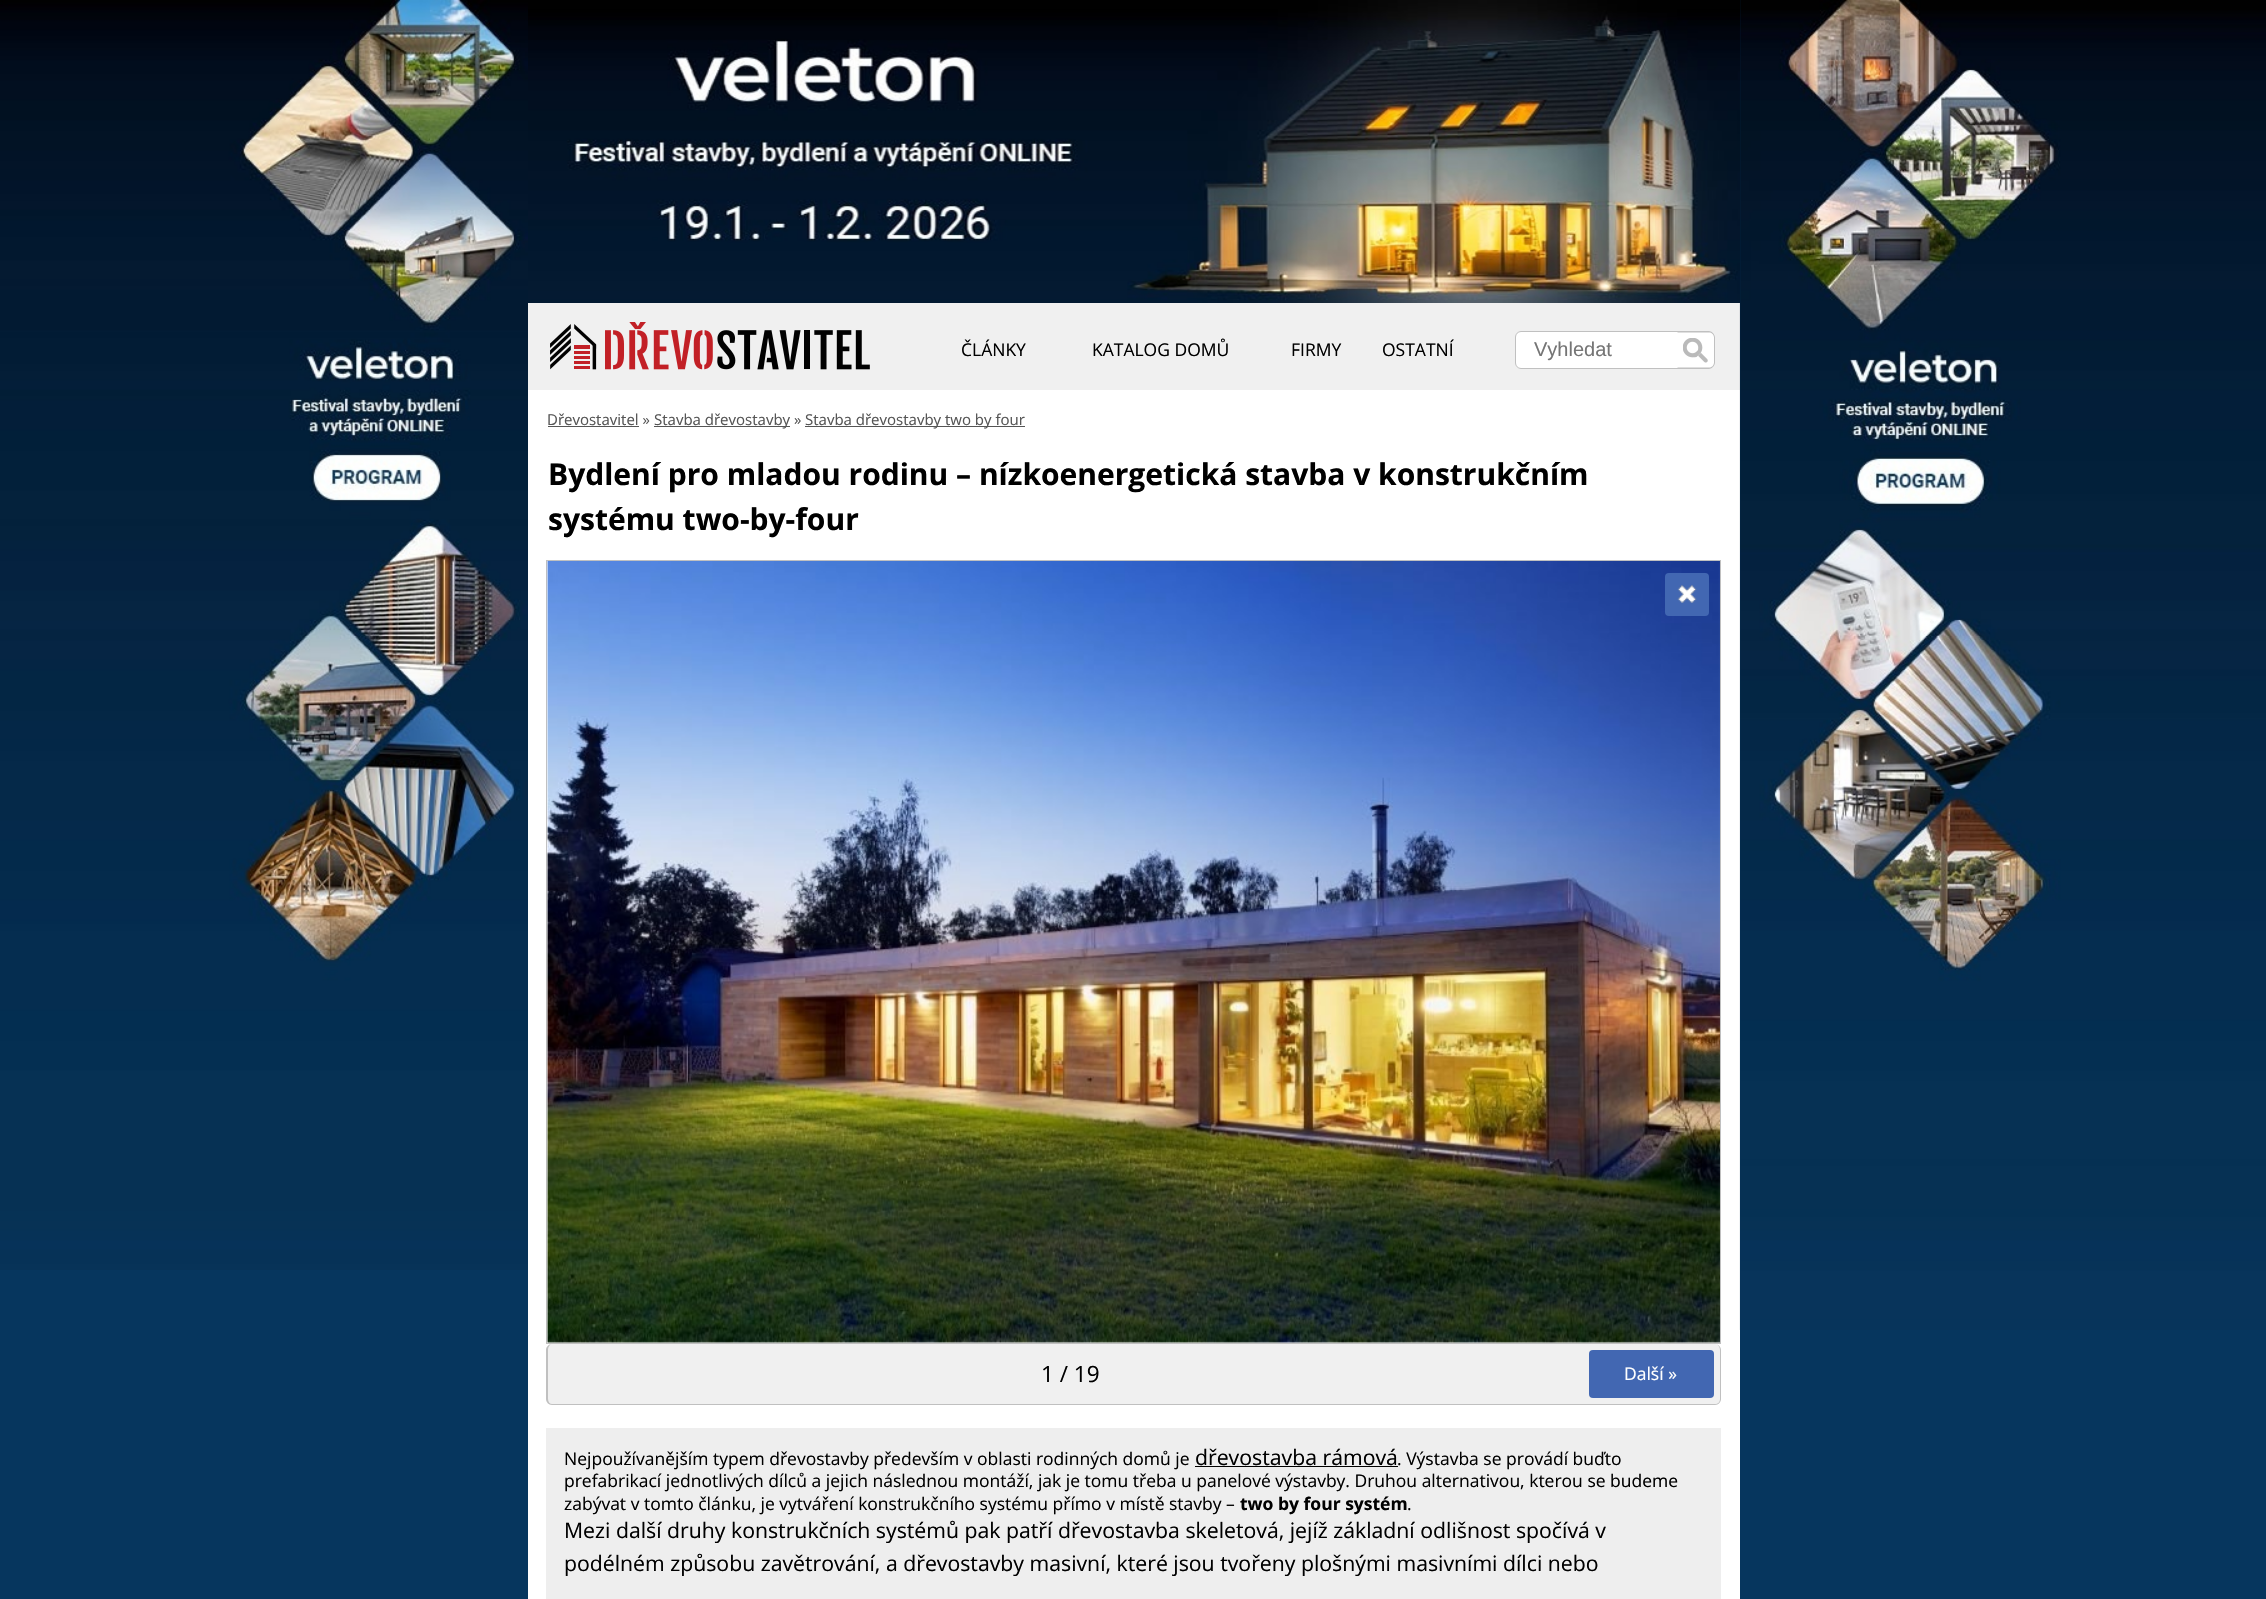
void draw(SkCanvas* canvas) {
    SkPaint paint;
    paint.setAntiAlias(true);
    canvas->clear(0xFF06365E);
    canvas->drawImageRect(SkImages::DeferredFromEncodedData(SkData::MakeFromFileName("img1.png")), SkRect::MakeXYWH(528, 0, 1212, 303), SkSamplingOptions());
    paint.setColor(0xFFFFFFFF);
    canvas->drawRect(SkRect::MakeXYWH(528, 390, 1212, 1209), paint);
    canvas->drawImageRect(SkImages::DeferredFromEncodedData(SkData::MakeFromFileName("img2.png")), SkRect::MakeXYWH(0, 0, 528, 1270), SkSamplingOptions());
    paint.setColor(0xFFF0F0F0);
    canvas->drawRect(SkRect::MakeXYWH(528, 303, 1212, 87), paint);
    canvas->drawImageRect(SkImages::DeferredFromEncodedData(SkData::MakeFromFileName("img3.png")), SkRect::MakeXYWH(550, 322, 320, 48), SkSamplingOptions());
    SkFont font1(fontMgr->matchFamilyStyle("Open Sans", SkFontStyle::Normal()), 17.5f);
    font1.setSubpixel(true);
    paint.setColor(0xFF000000);
    canvas->drawString("ČLÁNKY", 961, 356, font1, paint);
    canvas->drawString("KATALOG DOMŮ", 1092, 356, font1, paint);
    canvas->drawString("FIRMY", 1291, 356, font1, paint);
    canvas->drawString("OSTATNÍ", 1382, 356, font1, paint);
    paint.setColor(0xFFFFFFFF);
    canvas->drawPath(SkPathBuilder().moveTo(1521, 331.5f).lineTo(1680.5f, 331.5f).lineTo(1680.5f, 368.5f).lineTo(1521, 368.5f).cubicTo(1518, 368.5f, 1515.5f, 366, 1515.5f, 363).lineTo(1515.5f, 337).cubicTo(1515.5f, 334, 1518, 331.5f, 1521, 331.5f).close().detach(), paint);
    paint.setStyle(SkPaint::kStroke_Style);
    paint.setStrokeWidth(1);
    paint.setColor(0xFFC0C0C0);
    canvas->drawPath(SkPathBuilder().moveTo(1521, 331.5f).lineTo(1680.5f, 331.5f).lineTo(1680.5f, 368.5f).lineTo(1521, 368.5f).cubicTo(1518, 368.5f, 1515.5f, 366, 1515.5f, 363).lineTo(1515.5f, 337).cubicTo(1515.5f, 334, 1518, 331.5f, 1521, 331.5f).close().detach(), paint);
    SkFont font2(fontMgr->matchFamilyStyle("Liberation Sans", SkFontStyle::Normal()), 20);
    font2.setSubpixel(true);
    paint.setStyle(SkPaint::kFill_Style);
    paint.setColor(0xFF757575);
    canvas->drawString("Vyhledat", 1534, 356, font2, paint);
    paint.setColor(0xFFFFFFFF);
    canvas->drawPath(SkPathBuilder().moveTo(1678, 331).lineTo(1709, 331).cubicTo(1712.5f, 331, 1715, 333.5f, 1715, 337).lineTo(1715, 363).cubicTo(1715, 366.5f, 1712.5f, 369, 1709, 369).lineTo(1678, 369).close().detach(), paint);
    canvas->drawImageRect(SkImages::DeferredFromEncodedData(SkData::MakeFromFileName("img4.png")), SkRect::MakeXYWH(1683, 338, 25, 25), SkSamplingOptions());
    paint.setColor(0xFFC0C0C0);
    canvas->drawPath(SkPathBuilder(SkPathFillType::kEvenOdd).moveTo(1677.5f, 331).lineTo(1709, 331).cubicTo(1712, 331, 1715, 334, 1715, 337.5f).lineTo(1715, 362.5f).cubicTo(1715, 366, 1712, 369, 1709, 369).lineTo(1677.5f, 369).close().moveTo(1677.5f, 332.5f).lineTo(1709, 332.5f).cubicTo(1711.5f, 332.5f, 1714, 334.5f, 1714, 337.5f).lineTo(1714, 362.5f).cubicTo(1714, 365.5f, 1711.5f, 367.5f, 1709, 367.5f).lineTo(1677.5f, 367.5f).close().detach(), paint);
    canvas->drawImageRect(SkImages::DeferredFromEncodedData(SkData::MakeFromFileName("img5.png")), SkRect::MakeXYWH(1739, 0, 527, 1330), SkSamplingOptions());
    SkFont font3(fontMgr->matchFamilyStyle("Open Sans", SkFontStyle::Normal()), 15);
    font3.setSubpixel(true);
    paint.setColor(0xFF555555);
    canvas->drawString("Dřevostavitel »", 547, 425, font3, paint);
    canvas->drawRect(SkRect::MakeXYWH(548, 426, 91, 1), paint);
    canvas->drawRect(SkRect::MakeXYWH(654, 426, 136, 1), paint);
    canvas->drawString("Stavba dřevostavby »", 654, 425, font3, paint);
    canvas->drawRect(SkRect::MakeXYWH(805, 426, 220, 1), paint);
    canvas->drawString("Stavba dřevostavby two by four", 805, 425, font3, paint);
    SkFont font4(fontMgr->matchFamilyStyle("Open Sans", SkFontStyle::Bold()), 30);
    font4.setSubpixel(true);
    paint.setColor(0xFF000000);
    canvas->drawString("Bydlení pro mladou rodinu – nízkoenergetická stavba v konstrukčním", 548, 485, font4, paint);
    canvas->drawString("systému two-by-four", 548, 530, font4, paint);
    paint.setStyle(SkPaint::kStroke_Style);
    paint.setColor(0xFFC0C0C0);
    canvas->drawRect(SkRect::MakeXYWH(546.5f, 560.5f, 1174, 783), paint);
    canvas->drawImageRect(SkImages::DeferredFromEncodedData(SkData::MakeFromFileName("img6.png")), SkRect::MakeXYWH(546, 561, 1174, 782), SkSamplingOptions());
    paint.setStyle(SkPaint::kFill_Style);
    paint.setColor(0xFF4267B2);
    canvas->drawRoundRect(SkRect::MakeXYWH(1665, 573, 44, 43), 4, 4, paint);
    canvas->drawImageRect(SkImages::DeferredFromEncodedData(SkData::MakeFromFileName("img7.png")), SkRect::MakeXYWH(1677, 585, 20, 18), SkSamplingOptions());
    paint.setColor(0xFFF0F0F0);
    canvas->drawRoundRect(SkRect::MakeXYWH(546, 1344, 1175, 61), 6, 6, paint);
    paint.setColor(0xFFC0C0C0);
    canvas->drawPath(SkPathBuilder(SkPathFillType::kEvenOdd).moveTo(552, 1344).lineTo(1715, 1344).cubicTo(1718, 1344, 1721, 1347, 1721, 1350).lineTo(1721, 1399).cubicTo(1721, 1402, 1718, 1405, 1715, 1405).lineTo(552, 1405).cubicTo(549, 1405, 546, 1402, 546, 1399).lineTo(546, 1350).cubicTo(546, 1347, 549, 1344, 552, 1344).close().moveTo(552, 1344).lineTo(1715, 1344).cubicTo(1718, 1344, 1720, 1347, 1720, 1350).lineTo(1720, 1399).cubicTo(1720, 1402, 1718, 1404, 1715, 1404).lineTo(552, 1404).cubicTo(550, 1404, 548, 1402, 548, 1399).lineTo(548, 1350).cubicTo(548, 1347, 550, 1344, 552, 1344).close().detach(), paint);
    SkFont font5(fontMgr->matchFamilyStyle("Open Sans", SkFontStyle::Normal()), 22.5f);
    font5.setSubpixel(true);
    paint.setColor(0xFF000000);
    canvas->drawString("1 / 19", 1041, 1382, font5, paint);
    paint.setColor(0xFF4267B2);
    canvas->drawRoundRect(SkRect::MakeXYWH(1589, 1350, 125, 48), 4, 4, paint);
    paint.setColor(0xFFFFFFFF);
    canvas->drawString("Další »", 1624, 1380, font1, paint);
    paint.setColor(0xFFEEEEEE);
    canvas->drawRect(SkRect::MakeXYWH(546, 1428, 1175, 171), paint);
    paint.setColor(0xFF000000);
    canvas->drawString("Nejpoužívanějším typem dřevostavby především v oblasti rodinných domů je", 564, 1465, font1, paint);
    SkFont font6(fontMgr->matchFamilyStyle("Open Sans", SkFontStyle::Normal()), 21.25f);
    font6.setSubpixel(true);
    canvas->drawString("dřevostavba rámová", 1195, 1465, font6, paint);
    canvas->drawRect(SkRect::MakeXYWH(1195, 1466, 203, 1), paint);
    canvas->drawString(". Výstavba se provádí buďto", 1397, 1465, font1, paint);
    canvas->drawString("prefabrikací jednotlivých dílců a jejich následnou montáží, jak je tomu třeba u panelové výstavby. Druhou alternativou, kterou se budeme", 564, 1487, font1, paint);
    canvas->drawString("zabývat v tomto článku, je vytváření konstrukčního systému přímo v místě stavby –", 564, 1510, font1, paint);
    SkFont font7(fontMgr->matchFamilyStyle("Open Sans", SkFontStyle::Bold()), 17.5f);
    font7.setSubpixel(true);
    canvas->drawString("two by four systém", 1240, 1510, font7, paint);
    canvas->drawString(".", 1407, 1510, font1, paint);
    canvas->drawString("Mezi další druhy konstrukčních systémů pak patří dřevostavba skeletová, jejíž základní odlišnost spočívá v", 564, 1538, font6, paint);
    canvas->drawString("podélném způsobu zavětrování, a dřevostavby masivní, které jsou tvořeny plošnými masivními dílci nebo", 564, 1571, font6, paint);
}
